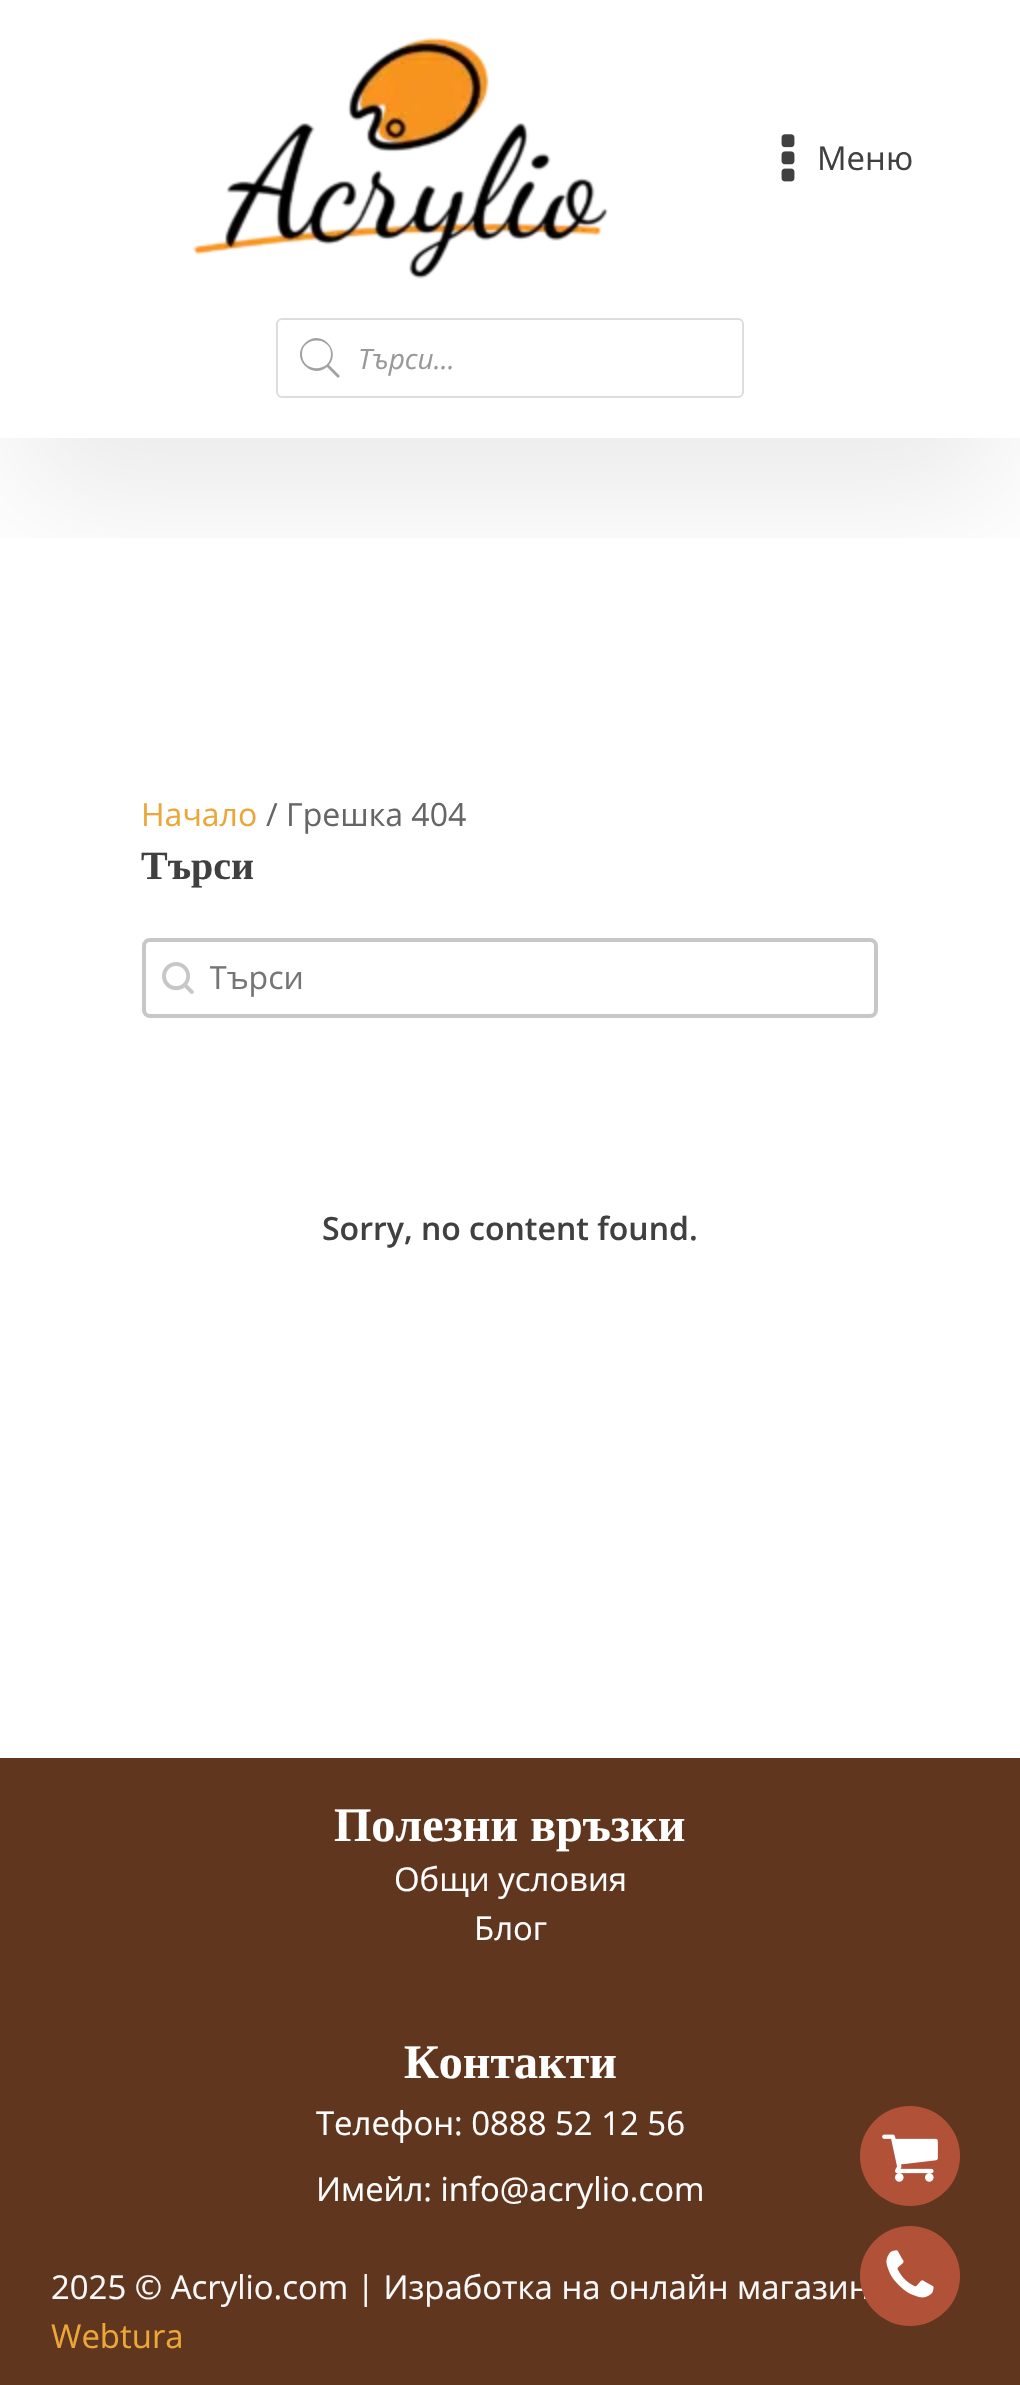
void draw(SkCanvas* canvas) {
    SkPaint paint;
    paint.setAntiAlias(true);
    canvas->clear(0xFFFFFFFF);
    canvas->save();
    canvas->clipRect(SkRect::MakeXYWH(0, 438, 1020, 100));
    paint.setColor(0x14000000);
    paint.setMaskFilter(SkMaskFilter::MakeBlur(kNormal_SkBlurStyle, 60));
    canvas->drawRect(SkRect::MakeXYWH(20, 100, 980, 398), paint);
    paint.setMaskFilter(nullptr);
    canvas->restore();
    canvas->drawImageRect(SkImages::DeferredFromEncodedData(SkData::MakeFromFileName("img1.png")), SkRect::MakeXYWH(193, 37, 415, 242), SkSamplingOptions());
    canvas->drawImageRect(SkImages::DeferredFromEncodedData(SkData::MakeFromFileName("img2.png")), SkRect::MakeXYWH(781, 134, 14, 48), SkSamplingOptions());
    SkFont font1(fontMgr->matchFamilyStyle("Open Sans", SkFontStyle::Normal()), 32.9f);
    font1.setSubpixel(true);
    paint.setColor(0xFF404040);
    canvas->drawString("Меню", 817, 170, font1, paint);
    paint.setStyle(SkPaint::kStroke_Style);
    paint.setStrokeWidth(2);
    paint.setColor(0xFFDDDDDD);
    canvas->drawRoundRect(SkRect::MakeXYWH(277, 319, 466, 78), 5, 5, paint);
    paint.setStyle(SkPaint::kFill_Style);
    paint.setColor(0xFFA2A2A2);
    canvas->drawPath(SkPathBuilder().moveTo(340, 376).lineTo(329, 365).cubicTo(342, 350, 320, 328, 305, 343).cubicTo(290, 358, 312, 380, 327, 367).lineTo(338, 378).close().moveTo(302, 354).cubicTo(302, 336, 331, 336, 331, 354).cubicTo(331, 373, 302, 373, 302, 354).close().detach(), paint);
    SkFont font2(fontMgr->matchFamilyStyle("Open Sans", SkFontStyle::Italic()), 28);
    font2.setSubpixel(true);
    paint.setColor(0xFF999999);
    canvas->drawString("Търси...", 358, 369, font2, paint);
    SkFont font3(fontMgr->matchFamilyStyle("Open Sans", SkFontStyle::Normal()), 32);
    font3.setSubpixel(true);
    paint.setColor(0xFFEBA739);
    canvas->drawString("Начало", 141, 826, font3, paint);
    paint.setColor(0xFF666666);
    canvas->drawString("/ Грешка 404", 266, 826, font3, paint);
    SkFont font4(fontMgr->matchFamilyStyle("Liberation Serif", SkFontStyle::Bold()), 40);
    font4.setSubpixel(true);
    paint.setColor(0xFF404040);
    canvas->drawString("Търси", 141, 879, font4, paint);
    paint.setStyle(SkPaint::kStroke_Style);
    paint.setStrokeWidth(4);
    paint.setColor(0xFFC7C7C7);
    canvas->drawRoundRect(SkRect::MakeXYWH(144, 940, 732, 76), 6, 6, paint);
    canvas->drawImageRect(SkImages::DeferredFromEncodedData(SkData::MakeFromFileName("img3.png")), SkRect::MakeXYWH(162, 962, 32, 32), SkSamplingOptions());
    canvas->save();
    canvas->clipRect(SkRect::MakeXYWH(210, 956, 592, 44));
    paint.setStyle(SkPaint::kFill_Style);
    paint.setColor(0xFF757575);
    canvas->drawString("Търси", 209, 989, font3, paint);
    canvas->restore();
    SkFont font5(fontMgr->matchFamilyStyle("Open Sans", SkFontStyle(600, SkFontStyle::kNormal_Width, SkFontStyle::kUpright_Slant)), 32);
    font5.setSubpixel(true);
    paint.setColor(0xFF404040);
    canvas->drawString("Sorry, no content found.", 322, 1240, font5, paint);
    paint.setColor(0xFF61361F);
    canvas->drawRect(SkRect::MakeXYWH(0, 1758, 1020, 627), paint);
    SkFont font6(fontMgr->matchFamilyStyle("Liberation Serif", SkFontStyle::Bold()), 48);
    font6.setSubpixel(true);
    paint.setColor(0xFFFFFFFF);
    canvas->drawString("Полезни връзки", 334, 1841, font6, paint);
    canvas->drawString("Общи условия", 394, 1891, font1, paint);
    canvas->drawString("Блог", 474, 1940, font1, paint);
    canvas->drawString("Контакти", 404, 2078, font6, paint);
    canvas->drawString("Телефон: 0888 52 12 56", 316, 2135, font1, paint);
    canvas->drawString("Имейл: info@acrylio.com", 316, 2201, font1, paint);
    paint.setColor(0xFFF9F9FA);
    canvas->drawString("2025 © Acrylio.com | Изработка на онлайн магазин", 51, 2299, font1, paint);
    paint.setColor(0xFFEBA739);
    canvas->drawString("Webtura", 51, 2348, font1, paint);
    paint.setColor(0xFFB15238);
    canvas->drawCircle(910, 2156, 50, paint);
    canvas->drawImageRect(SkImages::DeferredFromEncodedData(SkData::MakeFromFileName("img4.png")), SkRect::MakeXYWH(882, 2134, 56, 48), SkSamplingOptions());
    canvas->drawCircle(910, 2276, 50, paint);
    canvas->drawImageRect(SkImages::DeferredFromEncodedData(SkData::MakeFromFileName("img5.png")), SkRect::MakeXYWH(886, 2250, 48, 48), SkSamplingOptions());
}
